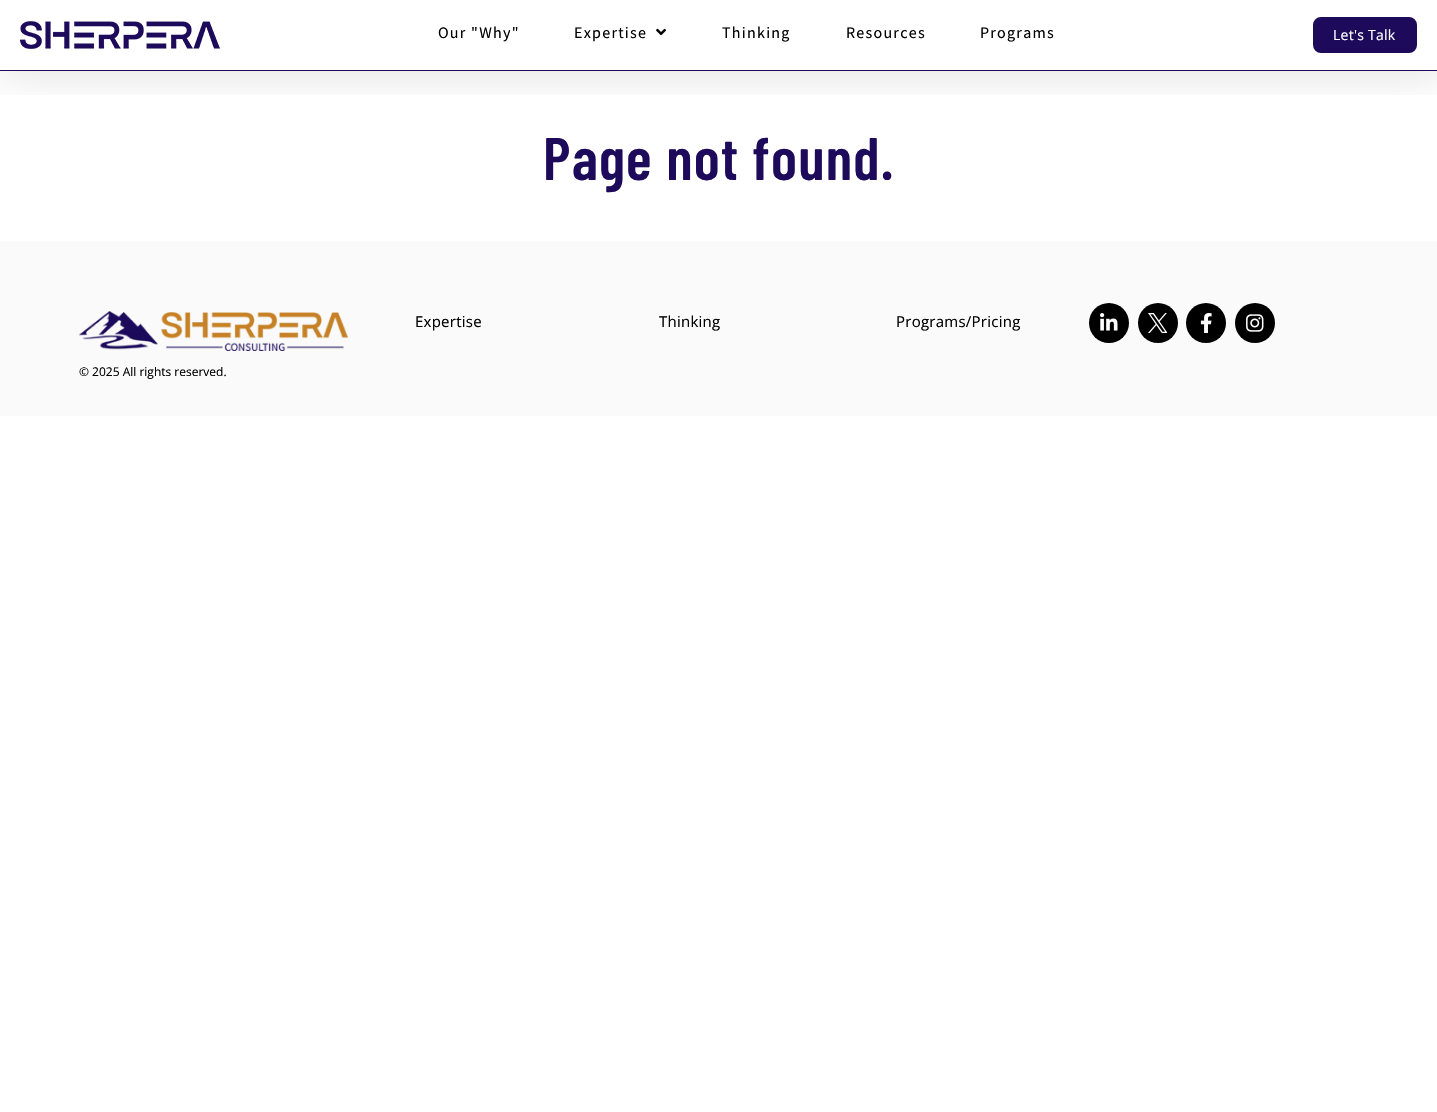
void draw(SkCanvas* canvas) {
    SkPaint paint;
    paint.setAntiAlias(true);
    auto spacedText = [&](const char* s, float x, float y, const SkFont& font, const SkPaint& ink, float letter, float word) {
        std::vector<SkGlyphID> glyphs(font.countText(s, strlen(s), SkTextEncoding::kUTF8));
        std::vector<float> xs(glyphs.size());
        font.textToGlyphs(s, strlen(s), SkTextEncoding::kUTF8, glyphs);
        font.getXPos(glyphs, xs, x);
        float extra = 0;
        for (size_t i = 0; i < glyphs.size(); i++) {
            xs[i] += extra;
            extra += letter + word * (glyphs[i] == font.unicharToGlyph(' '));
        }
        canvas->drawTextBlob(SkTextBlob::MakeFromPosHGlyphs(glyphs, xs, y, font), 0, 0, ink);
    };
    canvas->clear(0xFFFFFFFF);
    canvas->save();
    canvas->clipRect(SkRect::MakeXYWH(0, 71, 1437, 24));
    paint.setColor(0x1A000000);
    paint.setMaskFilter(SkMaskFilter::MakeBlur(kNormal_SkBlurStyle, 20));
    canvas->drawRect(SkRect::MakeXYWH(0, 1, 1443, 77), paint);
    paint.setMaskFilter(nullptr);
    canvas->restore();
    paint.setColor(0xFF1D0A5B);
    canvas->drawRect(SkRect::MakeXYWH(0, 70, 1437, 1), paint);
    canvas->drawImageRect(SkImages::DeferredFromEncodedData(SkData::MakeFromFileName("img1.png")), SkRect::MakeXYWH(20, 21, 200, 28), SkSamplingOptions());
    SkFont font1(fontMgr->matchFamilyStyle("Source Sans Pro", SkFontStyle::Normal()), 16);
    font1.setSubpixel(true);
    paint.setColor(0xFF000000);
    spacedText("Our \"Why\"", 438, 38, font1, paint, 1.25f, 0);
    spacedText("Expertise", 574, 38, font1, paint, 1.25f, 0);
    canvas->drawImageRect(SkImages::DeferredFromEncodedData(SkData::MakeFromFileName("img2.png")), SkRect::MakeXYWH(656, 28, 10, 8), SkSamplingOptions());
    spacedText("Thinking", 722, 38, font1, paint, 1.25f, 0);
    spacedText("Resources", 846, 38, font1, paint, 1.25f, 0);
    spacedText("Programs", 980, 38, font1, paint, 1.25f, 0);
    paint.setColor(0xFF1D0A5B);
    canvas->drawRoundRect(SkRect::MakeXYWH(1314, 18, 102, 34), 7, 7, paint);
    paint.setStyle(SkPaint::kStroke_Style);
    paint.setStrokeWidth(2);
    canvas->drawRoundRect(SkRect::MakeXYWH(1314, 18, 102, 34), 7, 7, paint);
    SkFont font2(fontMgr->matchFamilyStyle("Open Sans", SkFontStyle::Normal()), 14);
    font2.setSubpixel(true);
    paint.setStyle(SkPaint::kFill_Style);
    paint.setColor(0xFFFFFFFF);
    spacedText("Let's Talk", 1333, 40, font2, paint, 0.25f, 0);
    SkFont font3(fontMgr->matchFamilyStyle("Barlow Condensed", SkFontStyle(600, SkFontStyle::kNormal_Width, SkFontStyle::kUpright_Slant)), 60);
    font3.setSubpixel(true);
    paint.setColor(0xFF1D0A5B);
    spacedText("Page not found.", 543, 180, font3, paint, 1.25f, 0);
    paint.setColor(0xFFFAFAFA);
    canvas->drawRect(SkRect::MakeXYWH(0, 241, 1437, 175), paint);
    SkFont font4(fontMgr->matchFamilyStyle("Open Sans", SkFontStyle::Normal()), 15);
    font4.setSubpixel(true);
    paint.setColor(0xFF000000);
    spacedText("Expertise", 415, 327, font4, paint, 0.25f, 0);
    spacedText("Thinking", 659, 327, font4, paint, 0.25f, 0);
    spacedText("Programs/Pricing", 896, 327, font4, paint, 0.25f, 0);
    canvas->drawCircle(1109, 323, 20, paint);
    canvas->drawImageRect(SkImages::DeferredFromEncodedData(SkData::MakeFromFileName("img3.png")), SkRect::MakeXYWH(1100, 313, 18, 18), SkSamplingOptions());
    canvas->drawCircle(1158, 323, 20, paint);
    canvas->drawImageRect(SkImages::DeferredFromEncodedData(SkData::MakeFromFileName("img4.png")), SkRect::MakeXYWH(1148, 313, 19, 20), SkSamplingOptions());
    canvas->drawCircle(1206, 323, 20, paint);
    canvas->drawImageRect(SkImages::DeferredFromEncodedData(SkData::MakeFromFileName("img5.png")), SkRect::MakeXYWH(1200, 313, 12, 20), SkSamplingOptions());
    canvas->drawCircle(1255, 323, 20, paint);
    canvas->drawImageRect(SkImages::DeferredFromEncodedData(SkData::MakeFromFileName("img6.png")), SkRect::MakeXYWH(1246, 314, 18, 18), SkSamplingOptions());
    canvas->drawImageRect(SkImages::DeferredFromEncodedData(SkData::MakeFromFileName("img7.png")), SkRect::MakeXYWH(79, 311, 269, 40), SkSamplingOptions());
    SkFont font5(fontMgr->matchFamilyStyle("Open Sans", SkFontStyle::Normal()), 12);
    font5.setSubpixel(true);
    canvas->drawString("© 2025 All rights reserved.", 79, 376, font5, paint);
}
